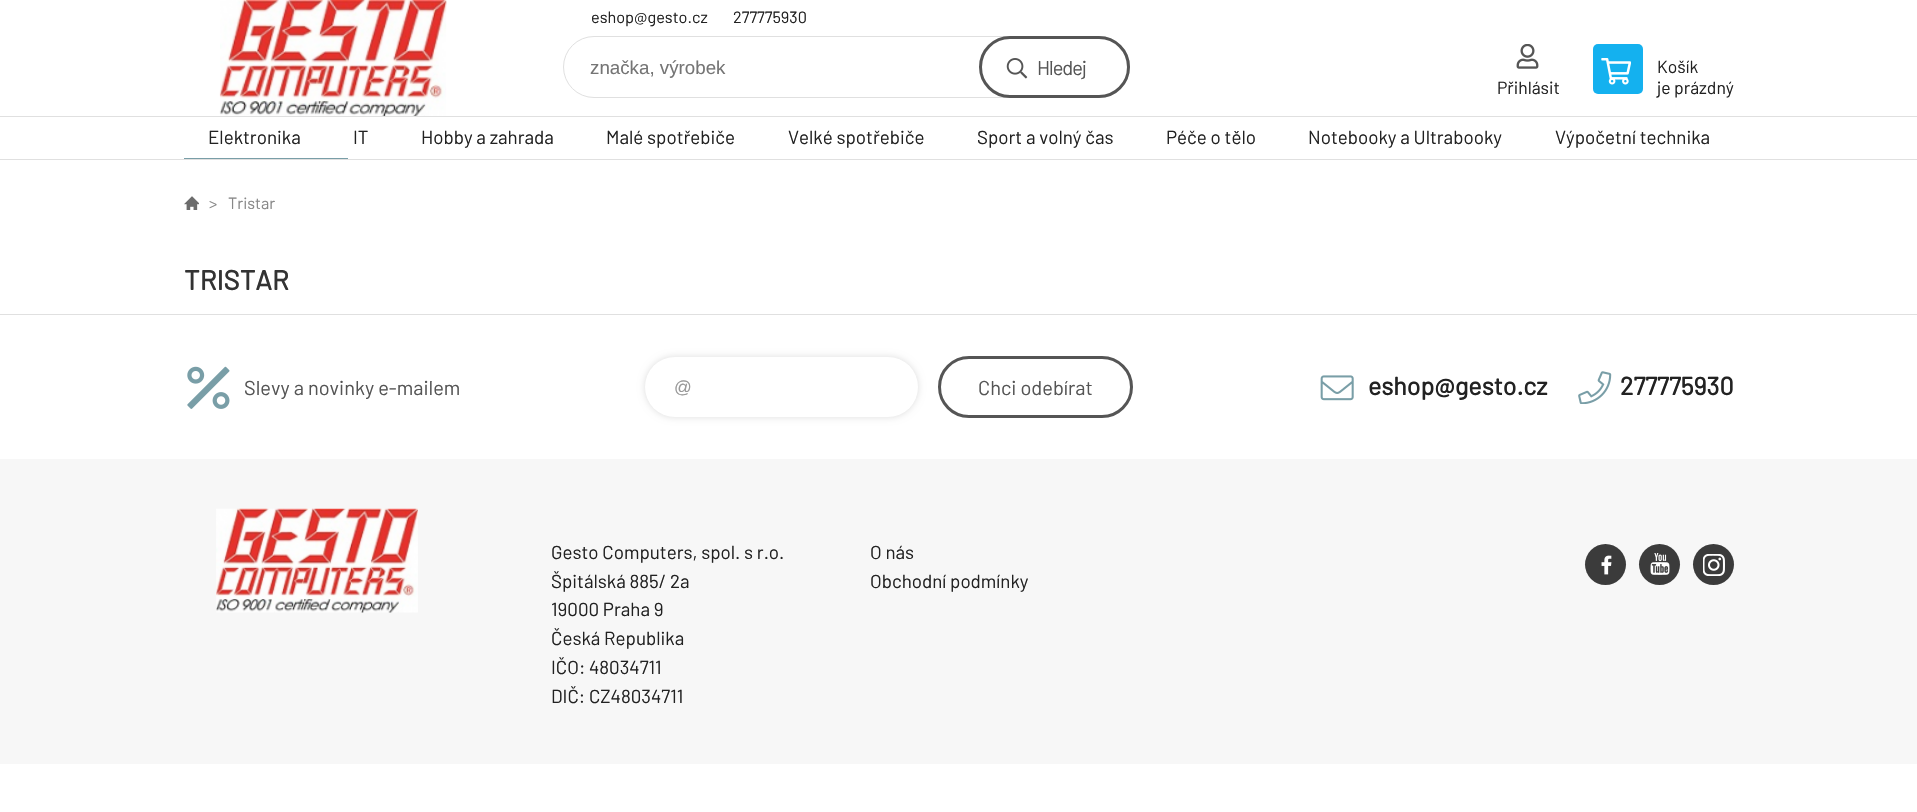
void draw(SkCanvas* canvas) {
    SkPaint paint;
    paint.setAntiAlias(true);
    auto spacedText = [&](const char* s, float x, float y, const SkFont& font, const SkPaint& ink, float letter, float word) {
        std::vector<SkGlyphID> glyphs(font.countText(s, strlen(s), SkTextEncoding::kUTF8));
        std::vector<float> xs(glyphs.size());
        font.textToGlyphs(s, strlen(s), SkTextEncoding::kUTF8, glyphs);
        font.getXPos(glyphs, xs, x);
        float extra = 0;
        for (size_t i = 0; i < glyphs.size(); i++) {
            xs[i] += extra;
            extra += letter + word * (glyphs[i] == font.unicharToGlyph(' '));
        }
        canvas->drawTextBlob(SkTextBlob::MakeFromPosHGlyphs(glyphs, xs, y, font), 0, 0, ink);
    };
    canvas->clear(0xFFFFFFFF);
    canvas->drawImageRect(SkImages::DeferredFromEncodedData(SkData::MakeFromFileName("img1.png")), SkRect::MakeXYWH(219, 0, 228, 116), SkSamplingOptions());
    SkFont font1(fontMgr->matchFamilyStyle("Barlow", SkFontStyle::Normal()), 16.25f);
    font1.setSubpixel(true);
    paint.setColor(0xFF222222);
    canvas->drawString("eshop@gesto.cz", 591, 23, font1, paint);
    canvas->drawString("277775930", 733, 23, font1, paint);
    paint.setStyle(SkPaint::kStroke_Style);
    paint.setStrokeWidth(1);
    paint.setColor(0xFFE0E0E0);
    canvas->drawRoundRect(SkRect::MakeXYWH(563.5f, 36.5f, 566, 61), 30.5f, 30.5f, paint);
    SkFont font2(fontMgr->matchFamilyStyle("Liberation Sans", SkFontStyle::Normal()), 18.75f);
    font2.setSubpixel(true);
    paint.setStyle(SkPaint::kFill_Style);
    paint.setColor(0xFF757575);
    canvas->drawString("značka, výrobek", 590, 74, font2, paint);
    canvas->drawImageRect(SkImages::DeferredFromEncodedData(SkData::MakeFromFileName("img2.png")), SkRect::MakeXYWH(1006, 58, 22, 21), SkSamplingOptions());
    paint.setStyle(SkPaint::kStroke_Style);
    paint.setStrokeWidth(3);
    paint.setColor(0xFF555555);
    canvas->drawRoundRect(SkRect::MakeXYWH(980.5f, 37.5f, 148, 59), 29.5f, 29.5f, paint);
    SkFont font3(fontMgr->matchFamilyStyle("Barlow", SkFontStyle::Normal()), 20);
    font3.setSubpixel(true);
    paint.setStyle(SkPaint::kFill_Style);
    spacedText("Hledej", 1037, 75, font3, paint, -1, 0);
    canvas->drawImageRect(SkImages::DeferredFromEncodedData(SkData::MakeFromFileName("img3.png")), SkRect::MakeXYWH(1516, 44, 23, 25), SkSamplingOptions());
    SkFont font4(fontMgr->matchFamilyStyle("Barlow", SkFontStyle::Normal()), 17.5f);
    font4.setSubpixel(true);
    paint.setColor(0xFF222222);
    canvas->drawString("Přihlásit", 1497, 94, font4, paint);
    paint.setColor(0xFF14B1EF);
    canvas->drawRoundRect(SkRect::MakeXYWH(1593, 44, 50, 50), 5, 5, paint);
    canvas->drawImageRect(SkImages::DeferredFromEncodedData(SkData::MakeFromFileName("img4.png")), SkRect::MakeXYWH(1601, 58, 30, 27), SkSamplingOptions());
    paint.setColor(0xFF222222);
    canvas->drawString("Košík", 1657, 73, font4, paint);
    canvas->drawString("je prázdný", 1657, 94, font4, paint);
    paint.setColor(0xFFE0E0E0);
    canvas->drawRect(SkRect::MakeXYWH(0, 116, 1917, 1), paint);
    canvas->drawRect(SkRect::MakeXYWH(0, 159, 1917, 1), paint);
    SkFont font5(fontMgr->matchFamilyStyle("Barlow", SkFontStyle::Normal()), 18.75f);
    font5.setSubpixel(true);
    paint.setColor(0xFF222222);
    canvas->drawString("Elektronika", 208, 144, font5, paint);
    paint.setColor(0xFF799EA7);
    canvas->drawRect(SkRect::MakeXYWH(184, 158, 164, 1), paint);
    paint.setColor(0xFF222222);
    canvas->drawString("IT", 353, 144, font5, paint);
    canvas->drawString("Hobby a zahrada", 421, 144, font5, paint);
    canvas->drawString("Malé spotřebiče", 606, 144, font5, paint);
    canvas->drawString("Velké spotřebiče", 788, 144, font5, paint);
    canvas->drawString("Sport a volný čas", 977, 144, font5, paint);
    canvas->drawString("Péče o tělo", 1166, 144, font5, paint);
    canvas->drawString("Notebooky a Ultrabooky", 1308, 144, font5, paint);
    canvas->drawString("Výpočetní technika", 1555, 144, font5, paint);
    canvas->drawImageRect(SkImages::DeferredFromEncodedData(SkData::MakeFromFileName("img5.png")), SkRect::MakeXYWH(184, 196, 15, 14), SkSamplingOptions());
    paint.setColor(0xFF888888);
    canvas->drawString(">", 209, 209, font1, paint);
    canvas->drawString("Tristar", 228, 209, font1, paint);
    SkFont font6(fontMgr->matchFamilyStyle("Barlow", SkFontStyle::Bold()), 27.5f);
    font6.setSubpixel(true);
    paint.setColor(0xFF333333);
    canvas->drawString("TRISTAR", 184, 290, font6, paint);
    paint.setColor(0xFFE0E0E0);
    canvas->drawRect(SkRect::MakeXYWH(0, 314, 1917, 1), paint);
    canvas->drawImageRect(SkImages::DeferredFromEncodedData(SkData::MakeFromFileName("img6.png")), SkRect::MakeXYWH(187, 366, 43, 43), SkSamplingOptions());
    paint.setColor(0xFF555555);
    canvas->drawString("Slevy a novinky e-mailem", 244, 395, font3, paint);
    paint.setColor(0x1A000000);
    paint.setMaskFilter(SkMaskFilter::MakeBlur(kNormal_SkBlurStyle, 3));
    canvas->drawRoundRect(SkRect::MakeXYWH(644, 356, 275, 62), 31, 31, paint);
    paint.setMaskFilter(nullptr);
    paint.setColor(0xFFFFFFFF);
    canvas->drawRoundRect(SkRect::MakeXYWH(644.5f, 356.5f, 274, 61), 30.5f, 30.5f, paint);
    paint.setStyle(SkPaint::kStroke_Style);
    paint.setStrokeWidth(1);
    paint.setColor(0xFFF0F0F0);
    canvas->drawRoundRect(SkRect::MakeXYWH(644.5f, 356.5f, 274, 61), 30.5f, 30.5f, paint);
    SkFont font7(fontMgr->matchFamilyStyle("Liberation Sans", SkFontStyle::Normal()), 17.5f);
    font7.setSubpixel(true);
    paint.setStyle(SkPaint::kFill_Style);
    paint.setColor(0xFF999999);
    canvas->drawString("@", 674, 393, font7, paint);
    paint.setStyle(SkPaint::kStroke_Style);
    paint.setStrokeWidth(3);
    paint.setColor(0xFF555555);
    canvas->drawRoundRect(SkRect::MakeXYWH(939.5f, 357.5f, 192, 59), 29.5f, 29.5f, paint);
    paint.setStyle(SkPaint::kFill_Style);
    canvas->drawString("Chci odebírat", 978, 395, font3, paint);
    canvas->drawImageRect(SkImages::DeferredFromEncodedData(SkData::MakeFromFileName("img7.png")), SkRect::MakeXYWH(1320, 375, 34, 26), SkSamplingOptions());
    SkFont font8(fontMgr->matchFamilyStyle("Barlow", SkFontStyle::Bold()), 25);
    font8.setSubpixel(true);
    paint.setColor(0xFF222222);
    canvas->drawString("eshop@gesto.cz", 1368, 395, font8, paint);
    canvas->drawImageRect(SkImages::DeferredFromEncodedData(SkData::MakeFromFileName("img8.png")), SkRect::MakeXYWH(1578, 371, 34, 33), SkSamplingOptions());
    canvas->drawString("277775930", 1620, 395, font8, paint);
    paint.setColor(0xFFF7F7F7);
    canvas->drawRect(SkRect::MakeXYWH(0, 459, 1917, 305), paint);
    canvas->drawImageRect(SkImages::DeferredFromEncodedData(SkData::MakeFromFileName("img9.png")), SkRect::MakeXYWH(216, 508, 202, 105), SkSamplingOptions());
    paint.setColor(0xFF222222);
    canvas->drawString("Gesto Computers, spol. s r.o.", 551, 559, font5, paint);
    canvas->drawString("Špitálská 885/ 2a", 551, 588, font5, paint);
    canvas->drawString("19000 Praha 9", 551, 616, font5, paint);
    canvas->drawString("Česká Republika", 551, 645, font5, paint);
    canvas->drawString("IČO: 48034711", 551, 674, font5, paint);
    canvas->drawString("DIČ: CZ48034711", 551, 703, font5, paint);
    canvas->drawString("O nás", 870, 559, font5, paint);
    canvas->drawString("Obchodní podmínky", 870, 588, font5, paint);
    paint.setColor(0xFF3B3B3B);
    canvas->drawCircle(1605.5f, 564.5f, 20.5f, paint);
    canvas->drawImageRect(SkImages::DeferredFromEncodedData(SkData::MakeFromFileName("img10.png")), SkRect::MakeXYWH(1601, 555, 11, 20), SkSamplingOptions());
    canvas->drawCircle(1659.5f, 564.5f, 20.5f, paint);
    canvas->drawImageRect(SkImages::DeferredFromEncodedData(SkData::MakeFromFileName("img11.png")), SkRect::MakeXYWH(1650, 553, 20, 22), SkSamplingOptions());
    canvas->drawCircle(1713.5f, 564.5f, 20.5f, paint);
    canvas->drawImageRect(SkImages::DeferredFromEncodedData(SkData::MakeFromFileName("img12.png")), SkRect::MakeXYWH(1703, 554, 22, 22), SkSamplingOptions());
}
